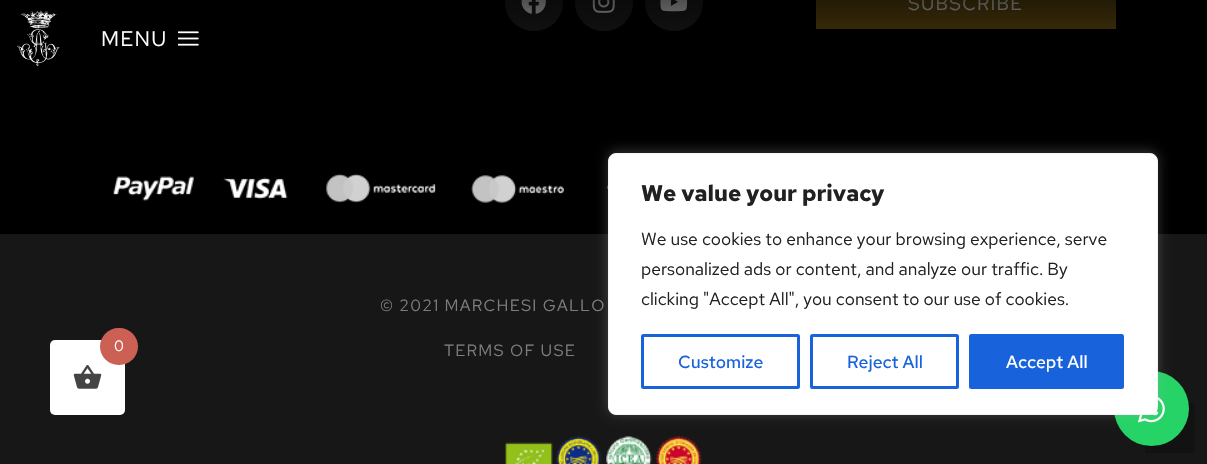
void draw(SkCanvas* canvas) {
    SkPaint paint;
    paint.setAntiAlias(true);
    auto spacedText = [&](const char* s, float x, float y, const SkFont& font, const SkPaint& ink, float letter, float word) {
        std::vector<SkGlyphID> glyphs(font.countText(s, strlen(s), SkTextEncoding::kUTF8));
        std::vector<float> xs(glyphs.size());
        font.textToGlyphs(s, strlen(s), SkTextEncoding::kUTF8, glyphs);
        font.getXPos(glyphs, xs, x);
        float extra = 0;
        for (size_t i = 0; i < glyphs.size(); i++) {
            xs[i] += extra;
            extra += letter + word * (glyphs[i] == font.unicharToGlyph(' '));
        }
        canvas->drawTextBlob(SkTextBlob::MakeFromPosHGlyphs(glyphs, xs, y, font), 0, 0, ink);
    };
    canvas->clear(0xFF000000);
    paint.setColor(0xFF212121);
    canvas->drawRoundRect(SkRect::MakeXYWH(505, -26, 58, 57), 28.5f, 28.5f, paint);
    canvas->drawImageRect(SkImages::DeferredFromEncodedData(SkData::MakeFromFileName("img3.png")), SkRect::MakeXYWH(521, 0, 25, 14), SkSamplingOptions());
    canvas->drawRoundRect(SkRect::MakeXYWH(575, -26, 58, 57), 28.5f, 28.5f, paint);
    canvas->drawImageRect(SkImages::DeferredFromEncodedData(SkData::MakeFromFileName("img4.png")), SkRect::MakeXYWH(592, 0, 23, 13), SkSamplingOptions());
    canvas->drawRoundRect(SkRect::MakeXYWH(645, -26, 58, 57), 28.5f, 28.5f, paint);
    canvas->drawImageRect(SkImages::DeferredFromEncodedData(SkData::MakeFromFileName("img5.png")), SkRect::MakeXYWH(660, 0, 28, 12), SkSamplingOptions());
    paint.setColor(0xFF735611);
    canvas->drawRect(SkRect::MakeXYWH(816, 0, 300, 29), paint);
    SkFont font1(fontMgr->matchFamilyStyle("Red Hat Text", SkFontStyle::Normal()), 18.75f);
    font1.setSubpixel(true);
    paint.setColor(0xFFFFFFFF);
    spacedText("SUBSCRIBE", 908, 10, font1, paint, 1.25f, 0);
    {
        const SkColor colors[] = {0xB0000000, 0x00000000};
        const float stops[] = {0, 1};
        const SkPoint ends[] = {{604, 0}, {604, 128}};
        paint.setShader(SkGradientShader::MakeLinear(ends, colors, stops, 2, SkTileMode::kClamp));
        paint.setAlpha(255);
    }
    canvas->drawRect(SkRect::MakeXYWH(505, 0, 611, 31), paint);
    canvas->drawImageRect(SkImages::DeferredFromEncodedData(SkData::MakeFromFileName("img1.png")), SkRect::MakeXYWH(16, 10, 44, 56), SkSamplingOptions());
    SkFont font2(fontMgr->matchFamilyStyle("Red Hat Text", SkFontStyle::Normal()), 21);
    font2.setSubpixel(true);
    paint.setShader(nullptr);
    paint.setColor(0xFFFFFFFF);
    spacedText("MENU", 101, 46, font2, paint, 1.25f, 0);
    canvas->drawImageRect(SkImages::DeferredFromEncodedData(SkData::MakeFromFileName("img2.png")), SkRect::MakeXYWH(178, 31, 21, 15), SkSamplingOptions());
    canvas->drawImageRect(SkImages::DeferredFromEncodedData(SkData::MakeFromFileName("img6.png")), SkRect::MakeXYWH(113, 174, 495, 29), SkSamplingOptions());
    paint.setColor(0xFF171717);
    canvas->drawRect(SkRect::MakeXYWH(0, 234, 1207, 230), paint);
    SkFont font3(fontMgr->matchFamilyStyle("Red Hat Text", SkFontStyle::Normal()), 16.25f);
    font3.setSubpixel(true);
    paint.setColor(0xFF7D7D7D);
    spacedText("© 2021 MARCHESI GALLO", 380, 311, font3, paint, 1.25f, 0);
    spacedText("TERMS OF USE", 444, 356, font3, paint, 1.25f, 0);
    canvas->drawImageRect(SkImages::DeferredFromEncodedData(SkData::MakeFromFileName("img7.png")), SkRect::MakeXYWH(505, 435, 197, 29), SkSamplingOptions());
    paint.setColor(0xFF121212);
    canvas->drawRect(SkRect::MakeXYWH(1145, 403, 50, 50), paint);
    paint.setColor(0xFFFFFFFF);
    canvas->drawRoundRect(SkRect::MakeXYWH(50, 340, 75, 75), 5, 5, paint);
    paint.setColor(0xFFCC6055);
    canvas->drawRoundRect(SkRect::MakeXYWH(100, 328, 38, 37), 18.5f, 18.5f, paint);
    SkFont font4(fontMgr->matchFamilyStyle("Red Hat Text", SkFontStyle::Normal()), 15);
    font4.setSubpixel(true);
    paint.setColor(0xFFFFFFFF);
    canvas->drawString("0", 114, 351, font4, paint);
    canvas->drawImageRect(SkImages::DeferredFromEncodedData(SkData::MakeFromFileName("img8.png")), SkRect::MakeXYWH(73, 365, 29, 24), SkSamplingOptions());
    paint.setColor(0xFF25D366);
    canvas->drawCircle(1151.5f, 408.5f, 37.5f, paint);
    canvas->drawImageRect(SkImages::DeferredFromEncodedData(SkData::MakeFromFileName("img9.png")), SkRect::MakeXYWH(1137, 397, 28, 26), SkSamplingOptions());
    paint.setColor(0x4DACABAB);
    paint.setMaskFilter(SkMaskFilter::MakeBlur(kNormal_SkBlurStyle, 6));
    canvas->drawRoundRect(SkRect::MakeXYWH(608, 151, 550, 263), 8, 8, paint);
    paint.setMaskFilter(nullptr);
    paint.setColor(0xFFFFFFFF);
    canvas->drawRoundRect(SkRect::MakeXYWH(608.5f, 153.5f, 549, 261), 7.5f, 7.5f, paint);
    paint.setStyle(SkPaint::kStroke_Style);
    paint.setStrokeWidth(1);
    paint.setColor(0xFFF4F4F4);
    canvas->drawRoundRect(SkRect::MakeXYWH(608.5f, 153.5f, 549, 261), 7.5f, 7.5f, paint);
    SkFont font5(fontMgr->matchFamilyStyle("Red Hat Text", SkFontStyle::Bold()), 22.5f);
    font5.setSubpixel(true);
    paint.setStyle(SkPaint::kFill_Style);
    paint.setColor(0xFF212121);
    canvas->drawString("We value your privacy", 641, 201, font5, paint);
    SkFont font6(fontMgr->matchFamilyStyle("Red Hat Text", SkFontStyle::Normal()), 17.5f);
    font6.setSubpixel(true);
    canvas->drawString("We use cookies to enhance your browsing experience, serve", 641, 245, font6, paint);
    canvas->drawString("personalized ads or content, and analyze our traffic. By", 641, 275, font6, paint);
    canvas->drawString("clicking \"Accept All\", you consent to our use of cookies.", 641, 305, font6, paint);
    paint.setStyle(SkPaint::kStroke_Style);
    paint.setStrokeWidth(3);
    paint.setColor(0xFF1863DC);
    canvas->drawRoundRect(SkRect::MakeXYWH(642.5f, 335.5f, 156, 52), 1, 1, paint);
    SkFont font7(fontMgr->matchFamilyStyle("Red Hat Text", SkFontStyle(500, SkFontStyle::kNormal_Width, SkFontStyle::kUpright_Slant)), 17.5f);
    font7.setSubpixel(true);
    paint.setStyle(SkPaint::kFill_Style);
    canvas->drawString("Customize", 678, 368, font7, paint);
    paint.setStyle(SkPaint::kStroke_Style);
    canvas->drawRoundRect(SkRect::MakeXYWH(811.5f, 335.5f, 146, 52), 1, 1, paint);
    paint.setStyle(SkPaint::kFill_Style);
    canvas->drawString("Reject All", 847, 368, font7, paint);
    canvas->drawRoundRect(SkRect::MakeXYWH(970.5f, 335.5f, 152, 52), 1, 1, paint);
    paint.setStyle(SkPaint::kStroke_Style);
    canvas->drawRoundRect(SkRect::MakeXYWH(970.5f, 335.5f, 152, 52), 1, 1, paint);
    paint.setStyle(SkPaint::kFill_Style);
    paint.setColor(0xFFFFFFFF);
    canvas->drawString("Accept All", 1006, 368, font7, paint);
}
